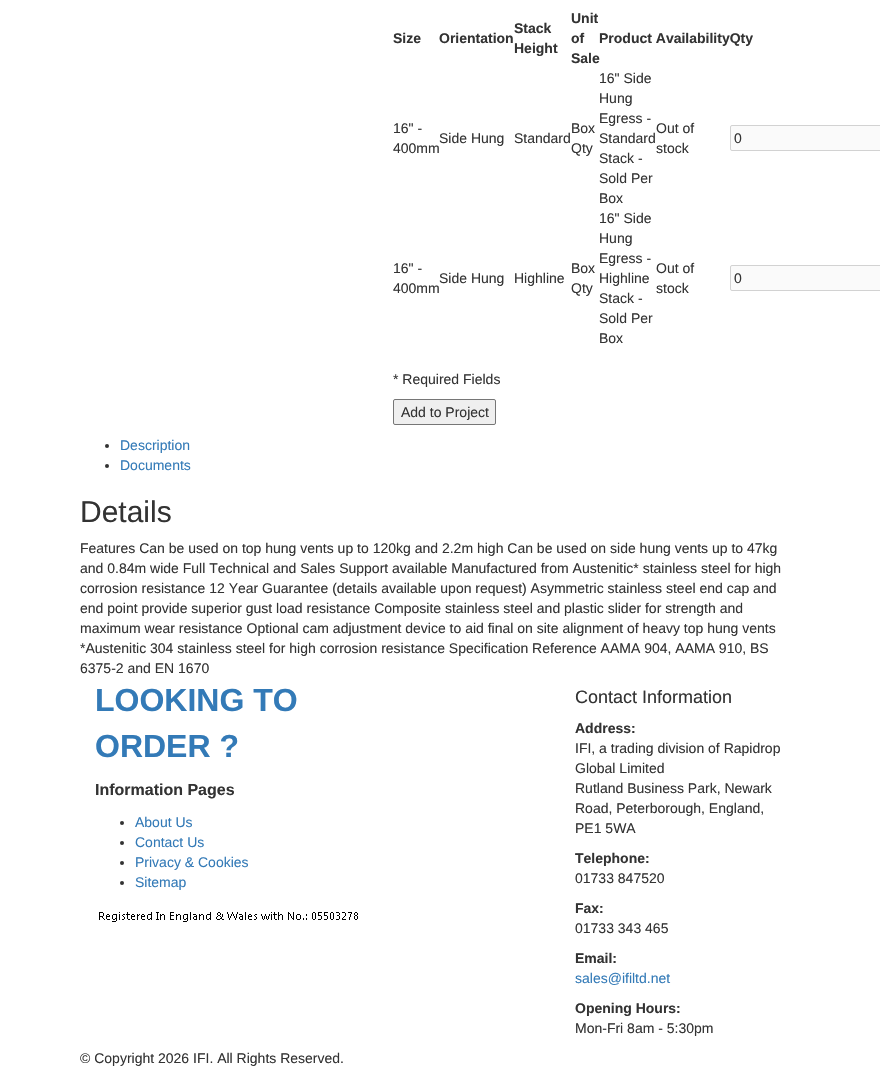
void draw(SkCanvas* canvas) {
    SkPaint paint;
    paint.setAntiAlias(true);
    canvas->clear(0xFFFFFFFF);
    SkFont font1(fontMgr->matchFamilyStyle("Liberation Sans", SkFontStyle::Bold()), 14);
    font1.setSubpixel(true);
    paint.setColor(0xFF333333);
    canvas->drawString("Size", 393, 43, font1, paint);
    canvas->drawString("Orientation", 439, 43, font1, paint);
    canvas->drawString("Stack", 514, 33, font1, paint);
    canvas->drawString("Height", 514, 53, font1, paint);
    canvas->drawString("Unit", 571, 23, font1, paint);
    canvas->drawString("of", 571, 43, font1, paint);
    canvas->drawString("Sale", 571, 63, font1, paint);
    canvas->drawString("Product AvailabilityQty", 599, 43, font1, paint);
    SkFont font2(fontMgr->matchFamilyStyle("Liberation Sans", SkFontStyle::Normal()), 14);
    font2.setSubpixel(true);
    canvas->drawString("16\" -", 393, 133, font2, paint);
    canvas->drawString("400mm", 393, 153, font2, paint);
    canvas->drawString("Side Hung", 439, 143, font2, paint);
    canvas->drawString("Standard", 514, 143, font2, paint);
    canvas->drawString("Box", 571, 133, font2, paint);
    canvas->drawString("Qty", 571, 153, font2, paint);
    canvas->drawString("16\" Side", 599, 83, font2, paint);
    canvas->drawString("Hung", 599, 103, font2, paint);
    canvas->drawString("Egress -", 599, 123, font2, paint);
    canvas->drawString("Standard", 599, 143, font2, paint);
    canvas->drawString("Stack -", 599, 163, font2, paint);
    canvas->drawString("Sold Per", 599, 183, font2, paint);
    canvas->drawString("Box", 599, 203, font2, paint);
    canvas->drawString("Out of", 656, 133, font2, paint);
    canvas->drawString("stock", 656, 153, font2, paint);
    paint.setColor(0xFFFAFAFA);
    canvas->drawRoundRect(SkRect::MakeXYWH(730.5f, 125.5f, 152, 25), 1.5f, 1.5f, paint);
    paint.setStyle(SkPaint::kStroke_Style);
    paint.setStrokeWidth(1);
    paint.setColor(0xFFD2D2D2);
    canvas->drawRoundRect(SkRect::MakeXYWH(730.5f, 125.5f, 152, 25), 1.5f, 1.5f, paint);
    paint.setStyle(SkPaint::kFill_Style);
    paint.setColor(0xFF333333);
    canvas->drawString("0", 734, 143, font2, paint);
    canvas->drawString("16\" -", 393, 273, font2, paint);
    canvas->drawString("400mm", 393, 293, font2, paint);
    canvas->drawString("Side Hung", 439, 283, font2, paint);
    canvas->drawString("Highline", 514, 283, font2, paint);
    canvas->drawString("Box", 571, 273, font2, paint);
    canvas->drawString("Qty", 571, 293, font2, paint);
    canvas->drawString("16\" Side", 599, 223, font2, paint);
    canvas->drawString("Hung", 599, 243, font2, paint);
    canvas->drawString("Egress -", 599, 263, font2, paint);
    canvas->drawString("Highline", 599, 283, font2, paint);
    canvas->drawString("Stack -", 599, 303, font2, paint);
    canvas->drawString("Sold Per", 599, 323, font2, paint);
    canvas->drawString("Box", 599, 343, font2, paint);
    canvas->drawString("Out of", 656, 273, font2, paint);
    canvas->drawString("stock", 656, 293, font2, paint);
    paint.setColor(0xFFFAFAFA);
    canvas->drawRoundRect(SkRect::MakeXYWH(730.5f, 265.5f, 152, 25), 1.5f, 1.5f, paint);
    paint.setStyle(SkPaint::kStroke_Style);
    paint.setColor(0xFFD2D2D2);
    canvas->drawRoundRect(SkRect::MakeXYWH(730.5f, 265.5f, 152, 25), 1.5f, 1.5f, paint);
    paint.setStyle(SkPaint::kFill_Style);
    paint.setColor(0xFF333333);
    canvas->drawString("0", 734, 283, font2, paint);
    canvas->drawString("* Required Fields", 393, 384, font2, paint);
    paint.setColor(0xFFEFEFEF);
    canvas->drawRoundRect(SkRect::MakeXYWH(393.5f, 399.5f, 102, 25), 1.5f, 1.5f, paint);
    paint.setStyle(SkPaint::kStroke_Style);
    paint.setColor(0xFF767676);
    canvas->drawRoundRect(SkRect::MakeXYWH(393.5f, 399.5f, 102, 25), 1.5f, 1.5f, paint);
    paint.setStyle(SkPaint::kFill_Style);
    paint.setColor(0xFF333333);
    canvas->drawString("Add to Project", 401, 417, font2, paint);
    canvas->drawCircle(107, 446, 2, paint);
    paint.setColor(0xFF337AB7);
    canvas->drawString("Description", 120, 450, font2, paint);
    paint.setColor(0xFF333333);
    canvas->drawCircle(107, 466, 2, paint);
    paint.setColor(0xFF337AB7);
    canvas->drawString("Documents", 120, 470, font2, paint);
    SkFont font3(fontMgr->matchFamilyStyle("Liberation Sans", SkFontStyle::Normal()), 30);
    font3.setSubpixel(true);
    paint.setColor(0xFF333333);
    canvas->drawString("Details", 80, 522, font3, paint);
    canvas->drawString("Features Can be used on top hung vents up to 120kg and 2.2m high Can be used on side hung vents up to 47kg", 80, 553, font2, paint);
    canvas->drawString("and 0.84m wide Full Technical and Sales Support available Manufactured from Austenitic* stainless steel for high", 80, 573, font2, paint);
    canvas->drawString("corrosion resistance 12 Year Guarantee (details available upon request) Asymmetric stainless steel end cap and", 80, 593, font2, paint);
    canvas->drawString("end point provide superior gust load resistance Composite stainless steel and plastic slider for strength and", 80, 613, font2, paint);
    canvas->drawString("maximum wear resistance Optional cam adjustment device to aid final on site alignment of heavy top hung vents", 80, 633, font2, paint);
    canvas->drawString("*Austenitic 304 stainless steel for high corrosion resistance Specification Reference AAMA 904, AAMA 910, BS", 80, 653, font2, paint);
    canvas->drawString("6375-2 and EN 1670", 80, 673, font2, paint);
    SkFont font4(fontMgr->matchFamilyStyle("Liberation Sans", SkFontStyle::Bold()), 32);
    font4.setSubpixel(true);
    paint.setColor(0xFF337AB7);
    canvas->drawString("LOOKING TO", 95, 711, font4, paint);
    canvas->drawString("ORDER ?", 95, 757, font4, paint);
    SkFont font5(fontMgr->matchFamilyStyle("Liberation Sans", SkFontStyle::Bold()), 16);
    font5.setSubpixel(true);
    paint.setColor(0xFF333333);
    canvas->drawString("Information Pages", 95, 795, font5, paint);
    canvas->drawCircle(122, 823, 2, paint);
    paint.setColor(0xFF337AB7);
    canvas->drawString("About Us", 135, 827, font2, paint);
    paint.setColor(0xFF333333);
    canvas->drawCircle(122, 843, 2, paint);
    paint.setColor(0xFF337AB7);
    canvas->drawString("Contact Us", 135, 847, font2, paint);
    paint.setColor(0xFF333333);
    canvas->drawCircle(122, 863, 2, paint);
    paint.setColor(0xFF337AB7);
    canvas->drawString("Privacy & Cookies", 135, 867, font2, paint);
    paint.setColor(0xFF333333);
    canvas->drawCircle(122, 883, 2, paint);
    paint.setColor(0xFF337AB7);
    canvas->drawString("Sitemap", 135, 887, font2, paint);
    canvas->drawImageRect(SkImages::DeferredFromEncodedData(SkData::MakeFromFileName("img1.png")), SkRect::MakeXYWH(99, 912, 259, 10), SkSamplingOptions());
    SkFont font6(fontMgr->matchFamilyStyle("Liberation Sans", SkFontStyle::Normal()), 18);
    font6.setSubpixel(true);
    paint.setColor(0xFF333333);
    canvas->drawString("Contact Information", 575, 703, font6, paint);
    canvas->drawString("Address:", 575, 733, font1, paint);
    canvas->drawString("IFI, a trading division of Rapidrop", 575, 753, font2, paint);
    canvas->drawString("Global Limited", 575, 773, font2, paint);
    canvas->drawString("Rutland Business Park, Newark", 575, 793, font2, paint);
    canvas->drawString("Road, Peterborough, England,", 575, 813, font2, paint);
    canvas->drawString("PE1 5WA", 575, 833, font2, paint);
    canvas->drawString("Telephone:", 575, 863, font1, paint);
    canvas->drawString("01733 847520", 575, 883, font2, paint);
    canvas->drawString("Fax:", 575, 913, font1, paint);
    canvas->drawString("01733 343 465", 575, 933, font2, paint);
    canvas->drawString("Email:", 575, 963, font1, paint);
    paint.setColor(0xFF337AB7);
    canvas->drawString("sales@ifiltd.net", 575, 983, font2, paint);
    paint.setColor(0xFF333333);
    canvas->drawString("Opening Hours:", 575, 1013, font1, paint);
    canvas->drawString("Mon-Fri 8am - 5:30pm", 575, 1033, font2, paint);
    canvas->drawString("© Copyright 2026 IFI. All Rights Reserved.", 80, 1063, font2, paint);
}
